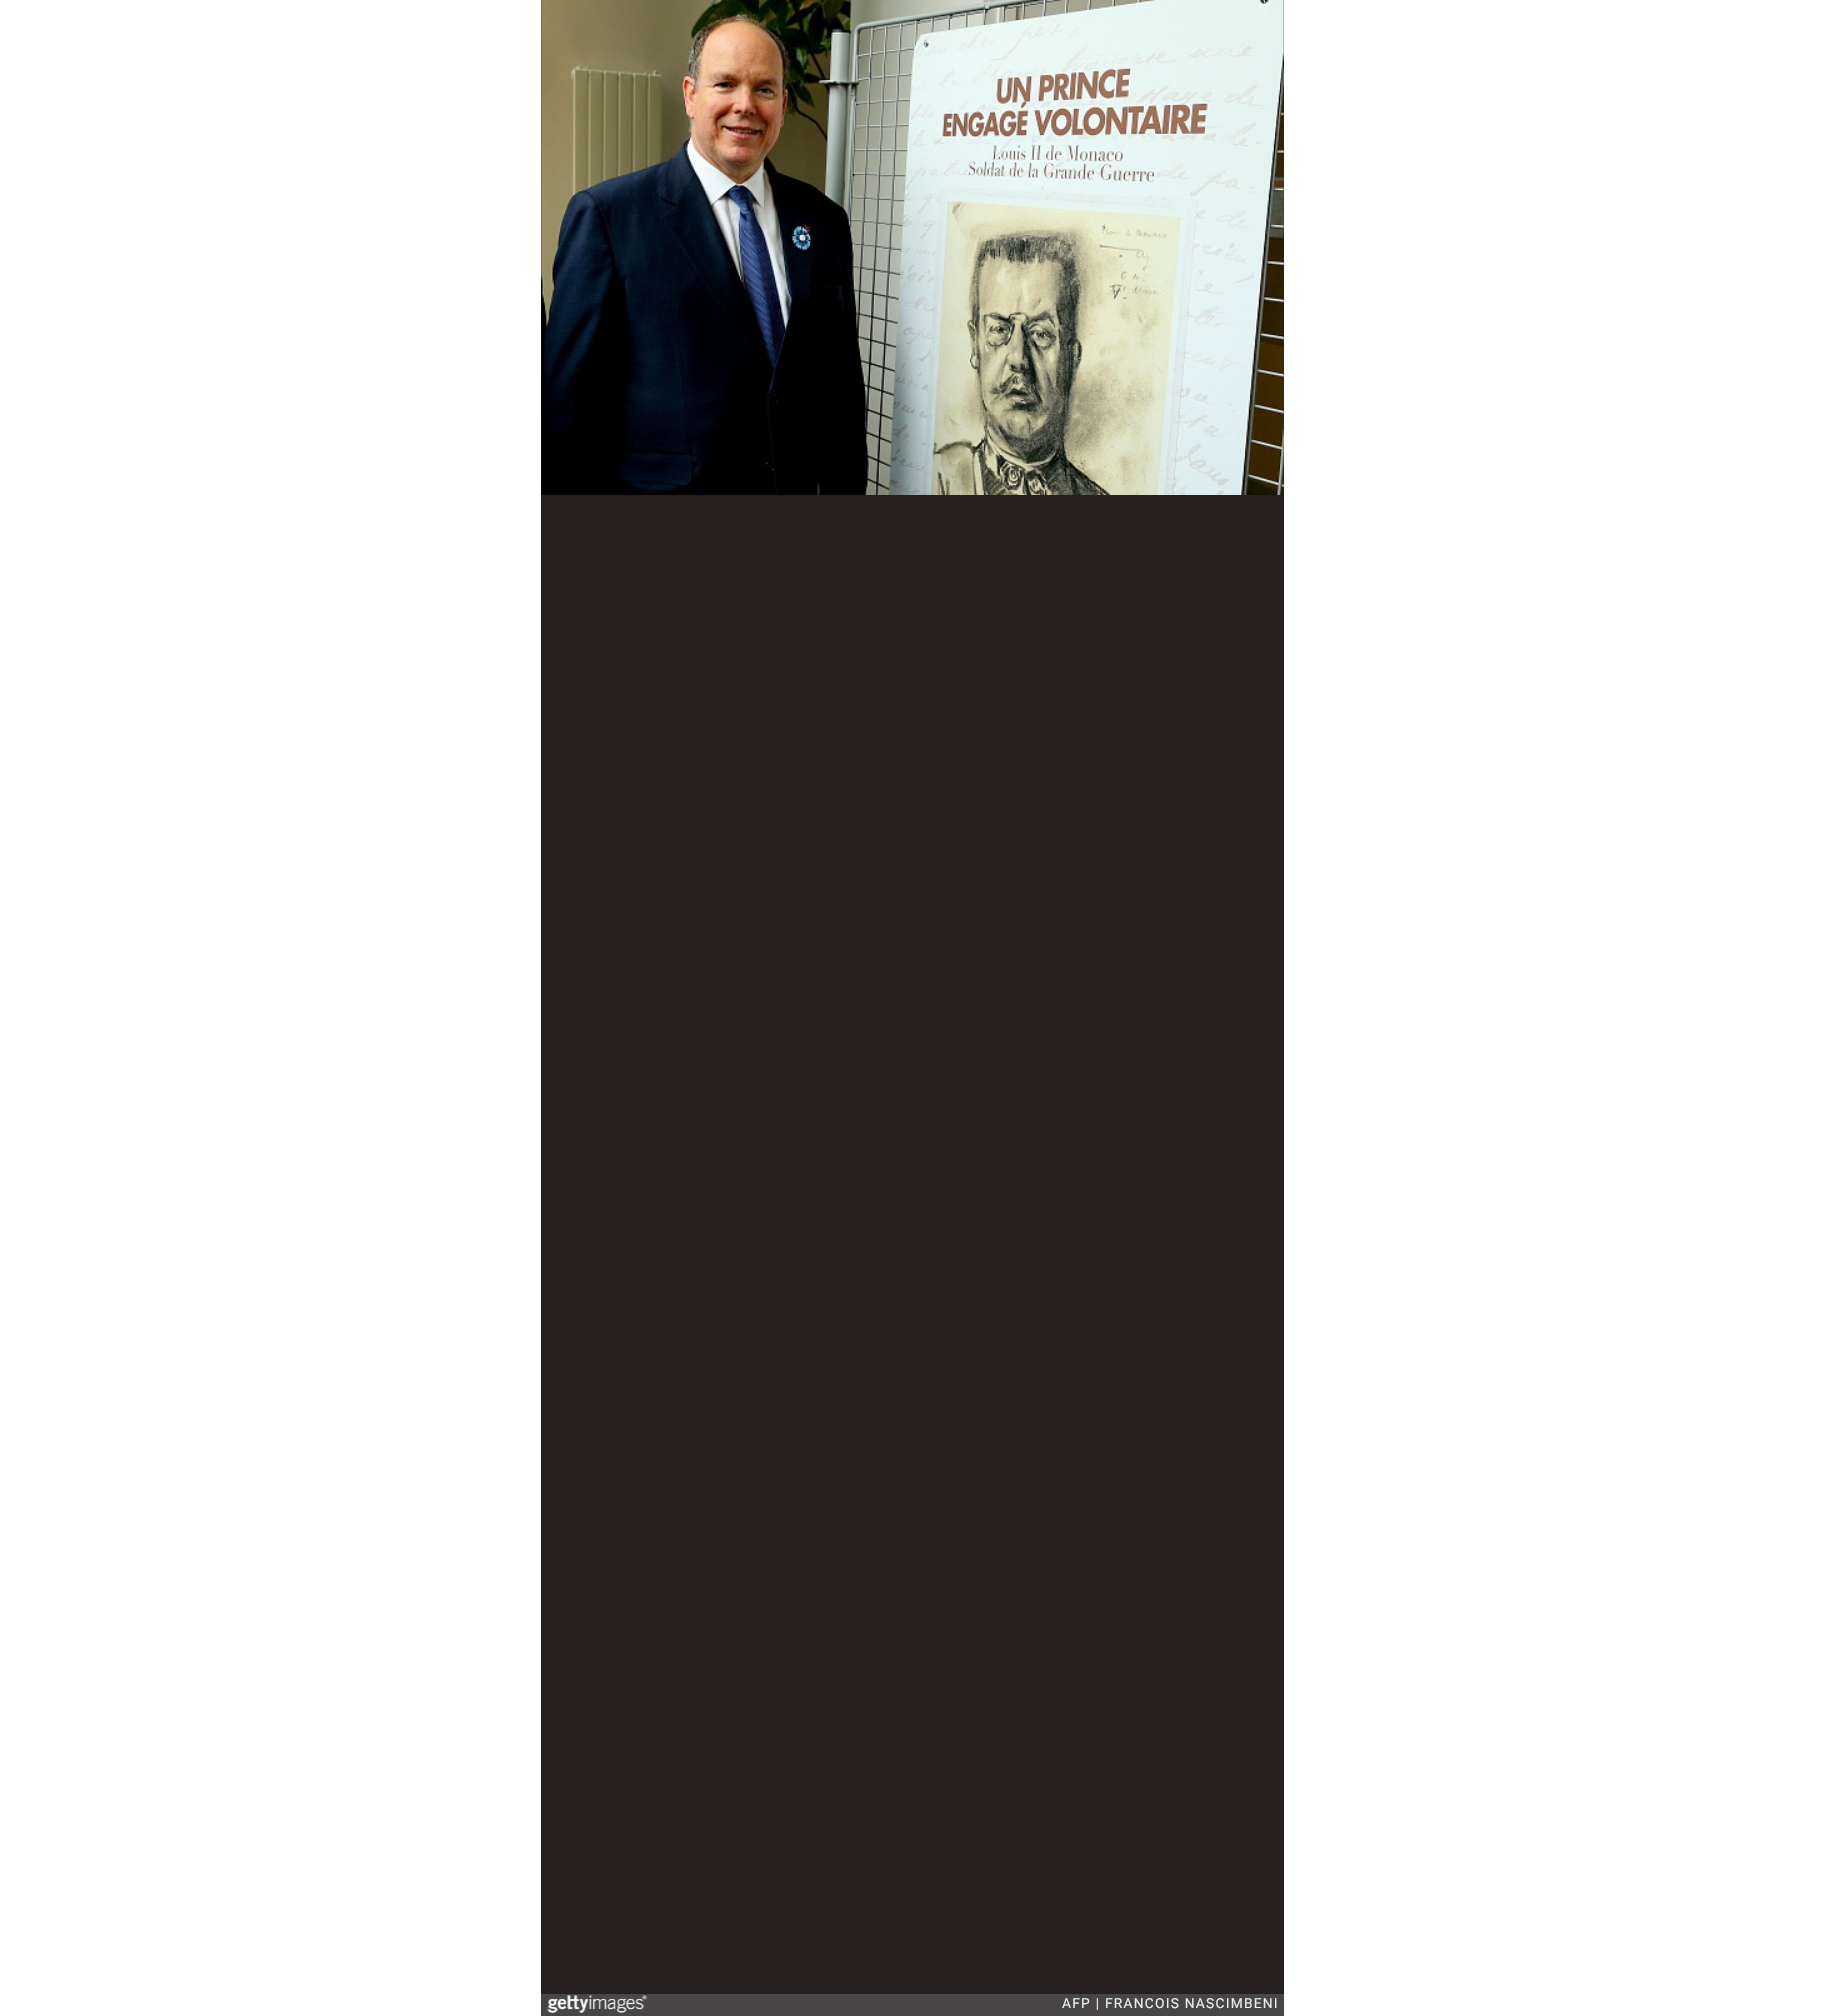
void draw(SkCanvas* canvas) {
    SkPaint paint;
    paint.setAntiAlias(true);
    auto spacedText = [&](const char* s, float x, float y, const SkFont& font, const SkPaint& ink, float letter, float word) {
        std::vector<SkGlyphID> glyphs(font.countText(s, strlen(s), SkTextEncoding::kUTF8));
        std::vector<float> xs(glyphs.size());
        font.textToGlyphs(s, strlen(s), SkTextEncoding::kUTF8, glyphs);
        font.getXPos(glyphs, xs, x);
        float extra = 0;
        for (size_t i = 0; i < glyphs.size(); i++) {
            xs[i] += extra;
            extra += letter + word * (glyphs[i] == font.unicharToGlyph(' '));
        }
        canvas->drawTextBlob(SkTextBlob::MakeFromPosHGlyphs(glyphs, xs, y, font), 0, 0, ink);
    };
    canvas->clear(0xFFFFFFFF);
    paint.setColor(0xFF251F20);
    canvas->drawRect(SkRect::MakeXYWH(541, 0, 743, 1994), paint);
    canvas->drawImageRect(SkImages::DeferredFromEncodedData(SkData::MakeFromFileName("img1.png")), SkRect::MakeXYWH(541, 0, 743, 495), SkSamplingOptions());
    paint.setColor(0xFF474545);
    canvas->drawRect(SkRect::MakeXYWH(541, 1994, 743, 22), paint);
    canvas->drawImageRect(SkImages::DeferredFromEncodedData(SkData::MakeFromFileName("img2.png")), SkRect::MakeXYWH(547, 1995, 101, 18), SkSamplingOptions());
    SkFont font1(fontMgr->matchFamilyStyle("Roboto", SkFontStyle::Normal()), 13.75f);
    font1.setSubpixel(true);
    paint.setColor(0xFFEEEEEE);
    spacedText("AFP | FRANCOIS NASCIMBENI", 1062, 2008, font1, paint, 1.25f, 0);
}
